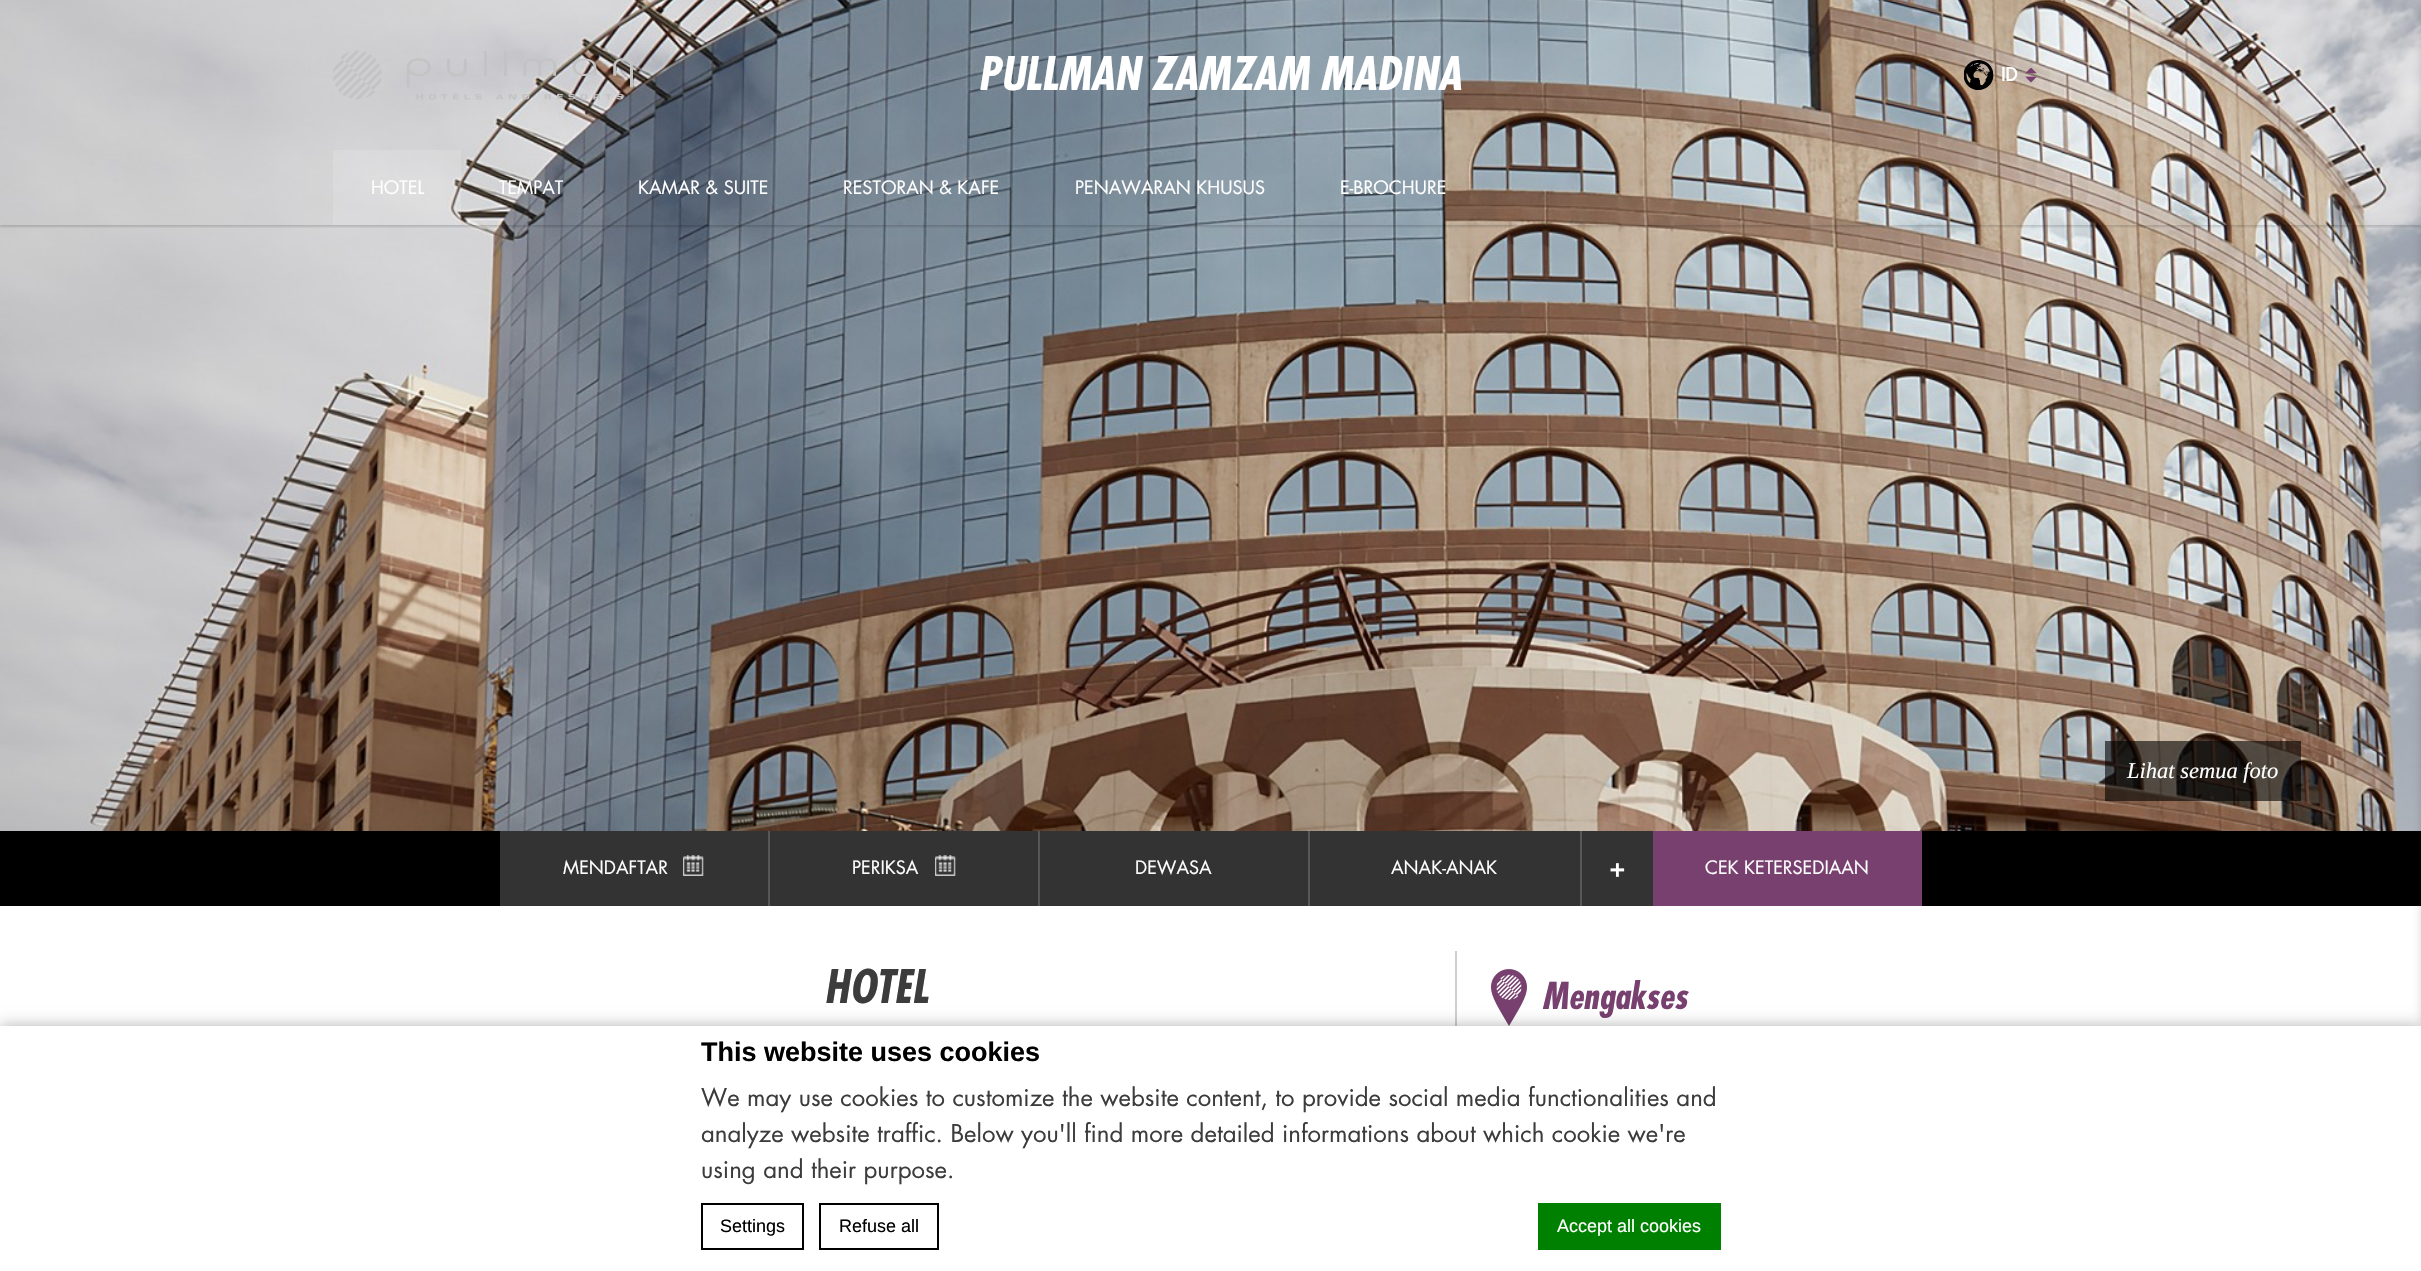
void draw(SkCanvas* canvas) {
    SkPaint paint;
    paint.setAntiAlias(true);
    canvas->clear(0xFFFFFFFF);
    canvas->drawImageRect(SkImages::DeferredFromEncodedData(SkData::MakeFromFileName("img4.png")), SkRect::MakeXYWH(0, 0, 2421, 831), SkSamplingOptions());
    canvas->save();
    canvas->clipRect(SkRect::MakeXYWH(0, 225, 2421, 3));
    paint.setColor(0x26000000);
    paint.setMaskFilter(SkMaskFilter::MakeBlur(kNormal_SkBlurStyle, 1));
    canvas->drawRect(SkRect::MakeXYWH(0, 2, 2421, 225), paint);
    paint.setMaskFilter(nullptr);
    canvas->restore();
    canvas->drawImageRect(SkImages::DeferredFromEncodedData(SkData::MakeFromFileName("img1.png")), SkRect::MakeXYWH(333, 50, 300, 50), SkSamplingOptions());
    SkFont font1(fontMgr->matchFamilyStyle("Futura", SkFontStyle::BoldItalic()), 45);
    font1.setSubpixel(true);
    paint.setColor(0xFFFFFFFF);
    canvas->drawString("PULLMAN ZAMZAM MADINA", 978, 90, font1, paint);
    canvas->drawImageRect(SkImages::DeferredFromEncodedData(SkData::MakeFromFileName("img2.png")), SkRect::MakeXYWH(1964, 60, 30, 30), SkSamplingOptions());
    SkFont font2(fontMgr->matchFamilyStyle("Futura", SkFontStyle::Bold()), 18);
    font2.setSubpixel(true);
    canvas->drawString("ID", 2001, 81, font2, paint);
    canvas->drawImageRect(SkImages::DeferredFromEncodedData(SkData::MakeFromFileName("img3.png")), SkRect::MakeXYWH(2025, 68, 12, 15), SkSamplingOptions());
    paint.setColor(0x26FFFFFF);
    canvas->drawRect(SkRect::MakeXYWH(333, 150, 128, 75), paint);
    SkFont font3(fontMgr->matchFamilyStyle("Futura", SkFontStyle::Normal()), 18);
    font3.setSubpixel(true);
    paint.setColor(0xFFFFFFFF);
    canvas->drawString("HOTEL", 371, 194, font3, paint);
    canvas->drawString("TEMPAT", 499, 194, font3, paint);
    canvas->drawString("KAMAR & SUITE", 638, 194, font3, paint);
    canvas->drawString("RESTORAN & KAFE", 843, 194, font3, paint);
    canvas->drawString("PENAWARAN KHUSUS", 1075, 194, font3, paint);
    canvas->drawString("E-BROCHURE", 1340, 194, font3, paint);
    paint.setColor(0xFF000000);
    canvas->drawRect(SkRect::MakeXYWH(0, 831, 2421, 75), paint);
    paint.setColor(0x26000000);
    paint.setMaskFilter(SkMaskFilter::MakeBlur(kNormal_SkBlurStyle, 4.5f));
    canvas->drawRect(SkRect::MakeXYWH(2421, 5, 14, 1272), paint);
    paint.setMaskFilter(nullptr);
    paint.setColor(0x99000000);
    canvas->drawRect(SkRect::MakeXYWH(2105, 741, 196, 60), paint);
    SkFont font4(fontMgr->matchFamilyStyle("Liberation Serif", SkFontStyle::Italic()), 22.5f);
    font4.setSubpixel(true);
    paint.setColor(0xFFFFFFFF);
    canvas->drawString("Lihat semua foto", 2127, 778, font4, paint);
    paint.setColor(0xFF575757);
    canvas->drawRect(SkRect::MakeXYWH(768, 831, 2, 75), paint);
    paint.setColor(0xFF333333);
    canvas->drawRect(SkRect::MakeXYWH(500, 831, 268, 75), paint);
    paint.setColor(0xFFFFFFFF);
    canvas->drawString("MENDAFTAR", 563, 874, font3, paint);
    canvas->drawImageRect(SkImages::DeferredFromEncodedData(SkData::MakeFromFileName("img5.png")), SkRect::MakeXYWH(683, 855, 21, 21), SkSamplingOptions());
    paint.setColor(0xFF575757);
    canvas->drawRect(SkRect::MakeXYWH(1038, 831, 2, 75), paint);
    paint.setColor(0xFF333333);
    canvas->drawRect(SkRect::MakeXYWH(770, 831, 268, 75), paint);
    paint.setColor(0xFFFFFFFF);
    canvas->drawString("PERIKSA", 852, 874, font3, paint);
    canvas->drawImageRect(SkImages::DeferredFromEncodedData(SkData::MakeFromFileName("img5.png")), SkRect::MakeXYWH(935, 855, 21, 21), SkSamplingOptions());
    paint.setColor(0xFF575757);
    canvas->drawRect(SkRect::MakeXYWH(1308, 831, 2, 75), paint);
    paint.setColor(0xFF333333);
    canvas->drawRect(SkRect::MakeXYWH(1040, 831, 268, 75), paint);
    paint.setColor(0xFFFFFFFF);
    canvas->drawString("DEWASA", 1135, 874, font3, paint);
    paint.setColor(0xFF333333);
    canvas->drawRect(SkRect::MakeXYWH(1310, 831, 270, 75), paint);
    paint.setColor(0xFFFFFFFF);
    canvas->drawString("ANAK-ANAK", 1391, 874, font3, paint);
    paint.setColor(0xFF333333);
    canvas->drawRect(SkRect::MakeXYWH(1582, 831, 71, 75), paint);
    paint.setColor(0xFF575757);
    canvas->drawRect(SkRect::MakeXYWH(1580, 831, 2, 75), paint);
    SkFont font5(fontMgr->matchFamilyStyle("Futura", SkFontStyle::Bold()), 26);
    font5.setSubpixel(true);
    paint.setColor(0xFFFFFFFF);
    canvas->drawString("+", 1609, 877, font5, paint);
    paint.setColor(0xFF77406F);
    canvas->drawRect(SkRect::MakeXYWH(1653, 831, 269, 75), paint);
    paint.setColor(0xFFFFFFFF);
    canvas->drawString("CEK KETERSEDIAAN", 1705, 874, font3, paint);
    paint.setColor(0xFFCFCFCF);
    canvas->drawRect(SkRect::MakeXYWH(1455, 951, 2, 75), paint);
    paint.setColor(0xFF3D3C3C);
    canvas->drawString("HOTEL", 824, 1003, font1, paint);
    canvas->drawImageRect(SkImages::DeferredFromEncodedData(SkData::MakeFromFileName("img6.png")), SkRect::MakeXYWH(1491, 969, 36, 57), SkSamplingOptions());
    SkFont font6(fontMgr->matchFamilyStyle("Futura", SkFontStyle::BoldItalic()), 36);
    font6.setSubpixel(true);
    paint.setColor(0xFF77406F);
    canvas->drawString("Mengakses", 1542, 1009, font6, paint);
    paint.setColor(0x4D000000);
    paint.setMaskFilter(SkMaskFilter::MakeBlur(kNormal_SkBlurStyle, 7.5f));
    canvas->drawRect(SkRect::MakeXYWH(0, 1026, 2421, 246), paint);
    paint.setMaskFilter(nullptr);
    paint.setColor(0xFFFFFFFF);
    canvas->drawRect(SkRect::MakeXYWH(0, 1026, 2421, 245), paint);
    SkFont font7(fontMgr->matchFamilyStyle("Liberation Sans", SkFontStyle::Bold()), 27);
    font7.setSubpixel(true);
    paint.setColor(0xFF000000);
    canvas->drawString("This website uses cookies", 701, 1061, font7, paint);
    SkFont font8(fontMgr->matchFamilyStyle("Futura", SkFontStyle::Normal()), 24);
    font8.setSubpixel(true);
    paint.setColor(0xFF3D3C3C);
    canvas->drawString("We may use cookies to customize the website content, to provide social media functionalities and", 701, 1106, font8, paint);
    canvas->drawString("analyze website traffic. Below you'll find more detailed informations about which cookie we're", 701, 1142, font8, paint);
    canvas->drawString("using and their purpose.", 701, 1178, font8, paint);
    paint.setStyle(SkPaint::kStroke_Style);
    paint.setStrokeWidth(2);
    paint.setColor(0xFF000000);
    canvas->drawRect(SkRect::MakeXYWH(702, 1204, 101, 45), paint);
    SkFont font9(fontMgr->matchFamilyStyle("Liberation Sans", SkFontStyle::Normal()), 18);
    font9.setSubpixel(true);
    paint.setStyle(SkPaint::kFill_Style);
    canvas->drawString("Settings", 720, 1232, font9, paint);
    paint.setStyle(SkPaint::kStroke_Style);
    canvas->drawRect(SkRect::MakeXYWH(820, 1204, 118, 45), paint);
    paint.setStyle(SkPaint::kFill_Style);
    canvas->drawString("Refuse all", 839, 1232, font9, paint);
    paint.setColor(0xFF008000);
    canvas->drawRect(SkRect::MakeXYWH(1538, 1203, 183, 47), paint);
    paint.setColor(0xFFFFFFFF);
    canvas->drawString("Accept all cookies", 1557, 1232, font9, paint);
}
